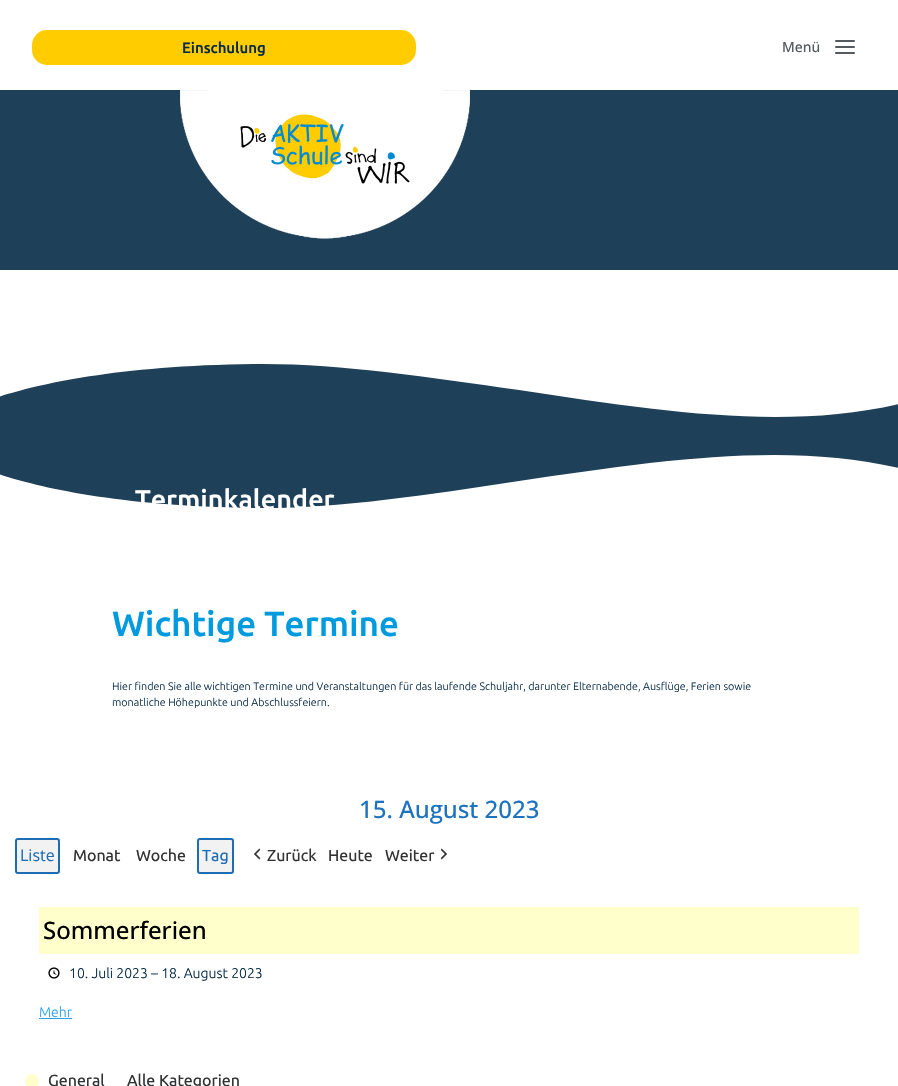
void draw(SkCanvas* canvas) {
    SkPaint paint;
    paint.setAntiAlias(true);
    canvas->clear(0xFFFFFFFF);
    paint.setColor(0xFFFFCC00);
    canvas->drawRoundRect(SkRect::MakeXYWH(32, 30, 384, 35), 15, 15, paint);
    SkFont font1(fontMgr->matchFamilyStyle("Ubuntu", SkFontStyle(500, SkFontStyle::kNormal_Width, SkFontStyle::kUpright_Slant)), 15);
    font1.setSubpixel(true);
    paint.setColor(0xFF062A46);
    canvas->drawString("Einschulung", 182, 53, font1, paint);
    SkFont font2(fontMgr->matchFamilyStyle("Open Sans", SkFontStyle(500, SkFontStyle::kNormal_Width, SkFontStyle::kUpright_Slant)), 14);
    font2.setSubpixel(true);
    paint.setColor(0xFF545A5E);
    canvas->drawString("Menü", 782, 52, font2, paint);
    canvas->drawImageRect(SkImages::DeferredFromEncodedData(SkData::MakeFromFileName("img1.png")), SkRect::MakeXYWH(835, 40, 20, 14), SkSamplingOptions());
    paint.setColor(0xFF1F4059);
    canvas->drawRect(SkRect::MakeXYWH(0, 90, 898, 180), paint);
    canvas->drawImageRect(SkImages::DeferredFromEncodedData(SkData::MakeFromFileName("img2.png")), SkRect::MakeXYWH(180, 90, 290, 149), SkSamplingOptions());
    canvas->drawPath(SkPathBuilder().moveTo(-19, 468).cubicTo(8, 478, 87, 506, 254, 508).lineTo(255, 508).cubicTo(336, 509, 427, 495, 519, 481).cubicTo(663, 460, 798, 439, 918, 473).lineTo(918, 418).lineTo(-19, 418).lineTo(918, 418).lineTo(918, 399).cubicTo(798, 433, 663, 412, 519, 390).cubicTo(427, 377, 336, 363, 255, 364).lineTo(254, 364).cubicTo(87, 366, 8, 393, -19, 403).detach(), paint);
    SkFont font3(fontMgr->matchFamilyStyle("Ubuntu", SkFontStyle(500, SkFontStyle::kNormal_Width, SkFontStyle::kUpright_Slant)), 27);
    font3.setSubpixel(true);
    paint.setColor(0xFFFFFFFF);
    canvas->drawString("Terminkalender", 135, 509, font3, paint);
    SkFont font4(fontMgr->matchFamilyStyle("Ubuntu", SkFontStyle(500, SkFontStyle::kNormal_Width, SkFontStyle::kUpright_Slant)), 35);
    font4.setSubpixel(true);
    paint.setColor(0xFF009BDE);
    canvas->drawString("Wichtige Termine", 112, 636, font4, paint);
    SkFont font5(fontMgr->matchFamilyStyle("Ubuntu", SkFontStyle(300, SkFontStyle::kNormal_Width, SkFontStyle::kUpright_Slant)), 10.78f);
    font5.setSubpixel(true);
    paint.setColor(0xFF062A46);
    canvas->drawString("Hier finden Sie alle wichtigen Termine und Veranstaltungen für das laufende Schuljahr, darunter Elternabende, Ausflüge, Ferien sowie", 112, 690, font5, paint);
    canvas->drawString("monatliche Höhepunkte und Abschlussfeiern.", 112, 706, font5, paint);
    SkFont font6(fontMgr->matchFamilyStyle("Open Sans", SkFontStyle(500, SkFontStyle::kNormal_Width, SkFontStyle::kUpright_Slant)), 24);
    font6.setSubpixel(true);
    paint.setColor(0xFF1E73BE);
    canvas->drawString("15. August 2023", 359, 818, font6, paint);
    paint.setColor(0xFFF2F2F2);
    canvas->drawRoundRect(SkRect::MakeXYWH(15, 838, 45, 36), 3, 3, paint);
    paint.setStyle(SkPaint::kStroke_Style);
    paint.setStrokeWidth(2);
    paint.setColor(0xFF1D6DB5);
    canvas->drawRoundRect(SkRect::MakeXYWH(16, 839, 43, 34), 2, 2, paint);
    SkFont font7(fontMgr->matchFamilyStyle("Open Sans", SkFontStyle::Normal()), 16);
    font7.setSubpixel(true);
    paint.setStyle(SkPaint::kFill_Style);
    canvas->drawString("Liste", 20, 861, font7, paint);
    SkFont font8(fontMgr->matchFamilyStyle("Ubuntu", SkFontStyle::Normal()), 16);
    font8.setSubpixel(true);
    paint.setColor(0xFF313233);
    canvas->drawString("Monat", 73, 861, font8, paint);
    canvas->drawString("Woche", 136, 861, font8, paint);
    paint.setColor(0xFFF2F2F2);
    canvas->drawRoundRect(SkRect::MakeXYWH(197, 838, 37, 36), 3, 3, paint);
    paint.setStyle(SkPaint::kStroke_Style);
    paint.setColor(0xFF1D6DB5);
    canvas->drawRoundRect(SkRect::MakeXYWH(198, 839, 35, 34), 2, 2, paint);
    paint.setStyle(SkPaint::kFill_Style);
    canvas->drawString("Tag", 202, 861, font8, paint);
    canvas->drawImageRect(SkImages::DeferredFromEncodedData(SkData::MakeFromFileName("img3.png")), SkRect::MakeXYWH(254, 848, 7, 12), SkSamplingOptions());
    paint.setColor(0xFF313233);
    canvas->drawString("Zurück", 267, 861, font8, paint);
    canvas->drawString("Heute", 328, 861, font8, paint);
    canvas->drawString("Weiter", 385, 861, font8, paint);
    canvas->drawImageRect(SkImages::DeferredFromEncodedData(SkData::MakeFromFileName("img4.png")), SkRect::MakeXYWH(440, 848, 7, 12), SkSamplingOptions());
    paint.setColor(0xFFFFFFCC);
    canvas->drawRect(SkRect::MakeXYWH(39, 907, 820, 47), paint);
    paint.setColor(0xFF000000);
    canvas->drawString("Sommerferien", 43, 939, font6, paint);
    canvas->drawImageRect(SkImages::DeferredFromEncodedData(SkData::MakeFromFileName("img5.png")), SkRect::MakeXYWH(48, 967, 12, 12), SkSamplingOptions());
    SkFont font9(fontMgr->matchFamilyStyle("Ubuntu", SkFontStyle(300, SkFontStyle::kNormal_Width, SkFontStyle::kUpright_Slant)), 14);
    font9.setSubpixel(true);
    paint.setColor(0xFF062A46);
    canvas->drawString("10. Juli 2023 – 18. August 2023", 69, 978, font9, paint);
    paint.setColor(0xFF2EA3F2);
    canvas->drawString("Mehr", 39, 1017, font9, paint);
    canvas->drawRect(SkRect::MakeXYWH(39, 1018, 33, 1), paint);
    paint.setColor(0xFFFFFFCC);
    canvas->drawCircle(32, 1081, 7.5f, paint);
    paint.setStyle(SkPaint::kStroke_Style);
    paint.setStrokeWidth(1);
    paint.setColor(0xFFFFFFFF);
    canvas->drawCircle(32, 1081, 7.5f, paint);
    paint.setStyle(SkPaint::kFill_Style);
    paint.setColor(0xFF313233);
    canvas->drawString("General", 48, 1086, font8, paint);
    canvas->drawString("Alle Kategorien", 127, 1086, font8, paint);
}
